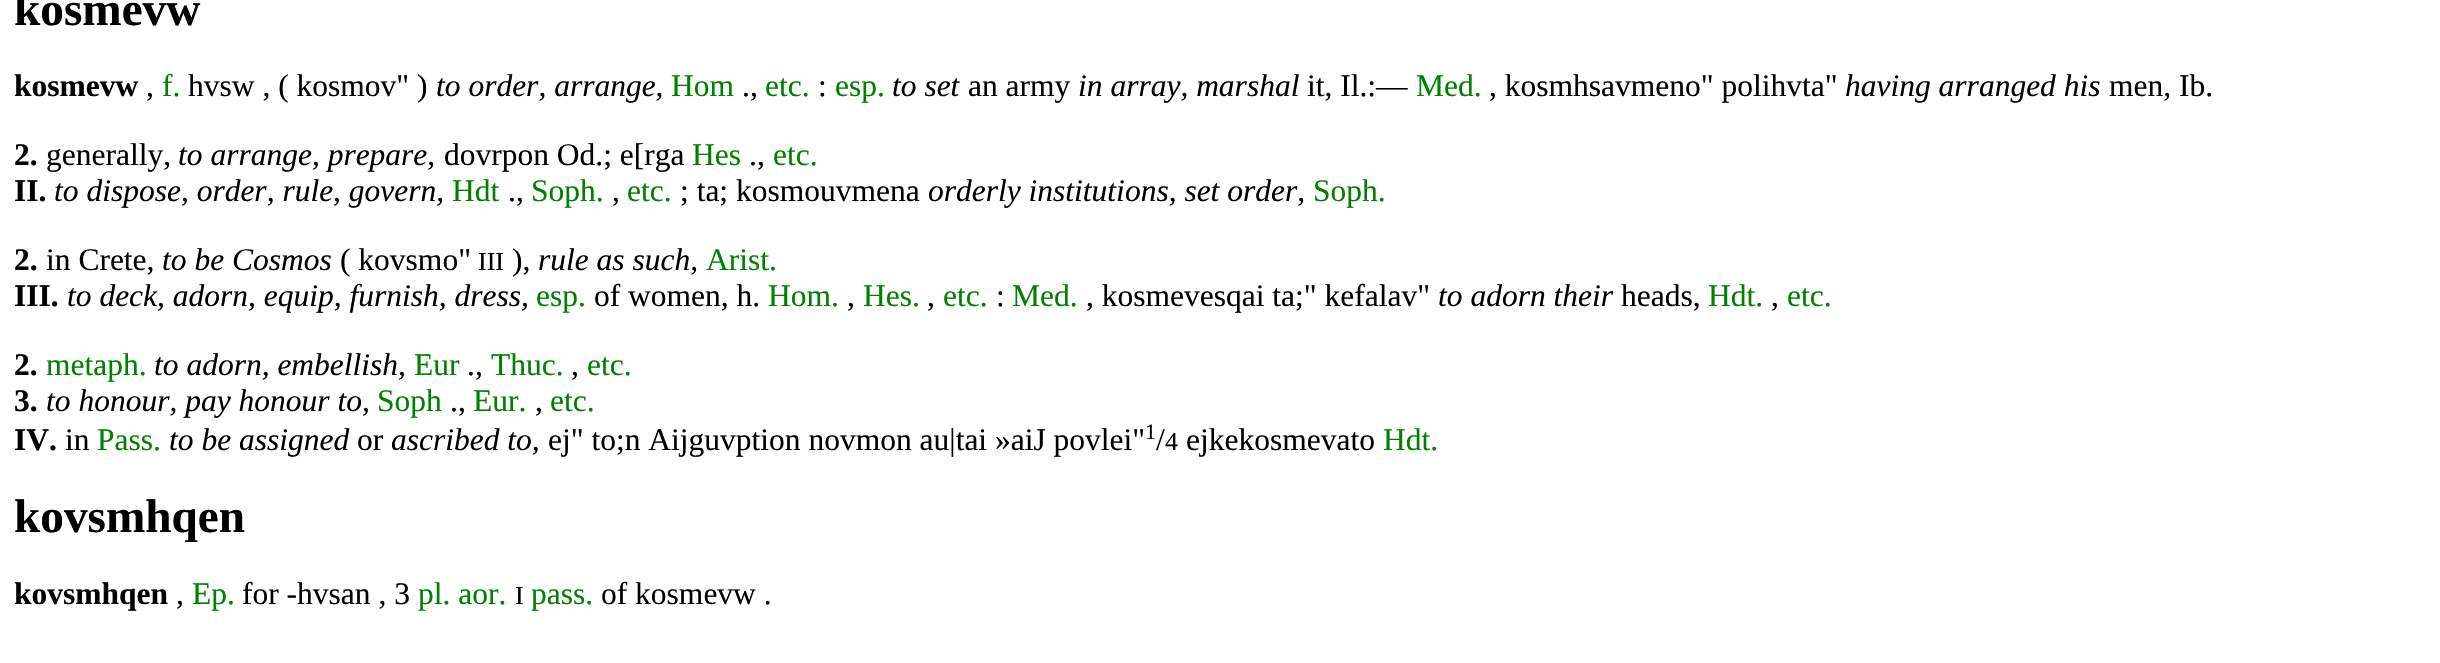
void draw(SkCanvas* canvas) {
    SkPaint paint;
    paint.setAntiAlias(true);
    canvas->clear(0xFFFFFFFF);
    SkFont font1(fontMgr->matchFamilyStyle("Liberation Serif", SkFontStyle::Bold()), 47.25f);
    font1.setSubpixel(true);
    paint.setColor(0xFF000000);
    canvas->drawString("kosmevw", 14, 25, font1, paint);
    SkFont font2(fontMgr->matchFamilyStyle("Liberation Serif", SkFontStyle::Bold()), 31.5f);
    font2.setSubpixel(true);
    canvas->drawString("kosmevw", 14, 96, font2, paint);
    SkFont font3(fontMgr->matchFamilyStyle("Liberation Serif", SkFontStyle::Normal()), 31.5f);
    font3.setSubpixel(true);
    canvas->drawString(",", 146, 96, font3, paint);
    paint.setColor(0xFF008000);
    canvas->drawString("f.", 162, 96, font3, paint);
    paint.setColor(0xFF000000);
    canvas->drawString("hvsw , ( kosmov\" )", 188, 96, font3, paint);
    SkFont font4(fontMgr->matchFamilyStyle("Liberation Serif", SkFontStyle::Italic()), 31.5f);
    font4.setSubpixel(true);
    canvas->drawString("to order, arrange,", 436, 96, font4, paint);
    paint.setColor(0xFF008000);
    canvas->drawString("Hom", 671, 96, font3, paint);
    paint.setColor(0xFF000000);
    canvas->drawString(".,", 742, 96, font3, paint);
    paint.setColor(0xFF008000);
    canvas->drawString("etc.", 765, 96, font3, paint);
    paint.setColor(0xFF000000);
    canvas->drawString(":", 818, 96, font3, paint);
    paint.setColor(0xFF008000);
    canvas->drawString("esp.", 835, 96, font3, paint);
    paint.setColor(0xFF000000);
    canvas->drawString("to set", 892, 96, font4, paint);
    canvas->drawString("an army", 968, 96, font3, paint);
    canvas->drawString("in array, marshal", 1078, 96, font4, paint);
    canvas->drawString("it, Il.:—", 1307, 96, font3, paint);
    paint.setColor(0xFF008000);
    canvas->drawString("Med.", 1416, 96, font3, paint);
    paint.setColor(0xFF000000);
    canvas->drawString(", kosmhsavmeno\" polihvta\"", 1489, 96, font3, paint);
    canvas->drawString("having arranged his", 1845, 96, font4, paint);
    canvas->drawString("men, Ib.", 2109, 96, font3, paint);
    canvas->drawString("2.", 14, 165, font2, paint);
    canvas->drawString("generally,", 46, 165, font3, paint);
    canvas->drawString("to arrange, prepare,", 178, 165, font4, paint);
    canvas->drawString("dovrpon Od.; e[rga", 444, 165, font3, paint);
    paint.setColor(0xFF008000);
    canvas->drawString("Hes", 692, 165, font3, paint);
    paint.setColor(0xFF000000);
    canvas->drawString(".,", 749, 165, font3, paint);
    paint.setColor(0xFF008000);
    canvas->drawString("etc.", 773, 165, font3, paint);
    paint.setColor(0xFF000000);
    canvas->drawString("II.", 14, 201, font2, paint);
    canvas->drawString("to dispose, order, rule, govern,", 54, 201, font4, paint);
    paint.setColor(0xFF008000);
    canvas->drawString("Hdt", 452, 201, font3, paint);
    paint.setColor(0xFF000000);
    canvas->drawString(".,", 508, 201, font3, paint);
    paint.setColor(0xFF008000);
    canvas->drawString("Soph.", 531, 201, font3, paint);
    paint.setColor(0xFF000000);
    canvas->drawString(",", 612, 201, font3, paint);
    paint.setColor(0xFF008000);
    canvas->drawString("etc.", 627, 201, font3, paint);
    paint.setColor(0xFF000000);
    canvas->drawString("; ta; kosmouvmena", 680, 201, font3, paint);
    canvas->drawString("orderly institutions, set order,", 928, 201, font4, paint);
    paint.setColor(0xFF008000);
    canvas->drawString("Soph.", 1313, 201, font3, paint);
    paint.setColor(0xFF000000);
    canvas->drawString("2.", 14, 270, font2, paint);
    canvas->drawString("in Crete,", 46, 270, font3, paint);
    canvas->drawString("to be Cosmos", 162, 270, font4, paint);
    canvas->drawString("( kovsmo\"", 340, 270, font3, paint);
    SkFont font5(fontMgr->matchFamilyStyle("Liberation Serif", SkFontStyle::Normal()), 26);
    font5.setSubpixel(true);
    canvas->drawString("III", 478, 270, font5, paint);
    canvas->drawString("),", 512, 270, font3, paint);
    canvas->drawString("rule as such,", 538, 270, font4, paint);
    paint.setColor(0xFF008000);
    canvas->drawString("Arist.", 706, 270, font3, paint);
    paint.setColor(0xFF000000);
    canvas->drawString("III.", 14, 306, font2, paint);
    canvas->drawString("to deck, adorn, equip, furnish, dress,", 67, 306, font4, paint);
    paint.setColor(0xFF008000);
    canvas->drawString("esp.", 536, 306, font3, paint);
    paint.setColor(0xFF000000);
    canvas->drawString("of women, h.", 594, 306, font3, paint);
    paint.setColor(0xFF008000);
    canvas->drawString("Hom.", 768, 306, font3, paint);
    paint.setColor(0xFF000000);
    canvas->drawString(",", 847, 306, font3, paint);
    paint.setColor(0xFF008000);
    canvas->drawString("Hes.", 863, 306, font3, paint);
    paint.setColor(0xFF000000);
    canvas->drawString(",", 927, 306, font3, paint);
    paint.setColor(0xFF008000);
    canvas->drawString("etc.", 943, 306, font3, paint);
    paint.setColor(0xFF000000);
    canvas->drawString(":", 996, 306, font3, paint);
    paint.setColor(0xFF008000);
    canvas->drawString("Med.", 1012, 306, font3, paint);
    paint.setColor(0xFF000000);
    canvas->drawString(", kosmevesqai ta;\" kefalav\"", 1086, 306, font3, paint);
    canvas->drawString("to adorn their", 1438, 306, font4, paint);
    canvas->drawString("heads,", 1621, 306, font3, paint);
    paint.setColor(0xFF008000);
    canvas->drawString("Hdt.", 1708, 306, font3, paint);
    paint.setColor(0xFF000000);
    canvas->drawString(",", 1771, 306, font3, paint);
    paint.setColor(0xFF008000);
    canvas->drawString("etc.", 1787, 306, font3, paint);
    paint.setColor(0xFF000000);
    canvas->drawString("2.", 14, 375, font2, paint);
    paint.setColor(0xFF008000);
    canvas->drawString("metaph.", 46, 375, font3, paint);
    paint.setColor(0xFF000000);
    canvas->drawString("to adorn, embellish,", 154, 375, font4, paint);
    paint.setColor(0xFF008000);
    canvas->drawString("Eur", 414, 375, font3, paint);
    paint.setColor(0xFF000000);
    canvas->drawString(".,", 467, 375, font3, paint);
    paint.setColor(0xFF008000);
    canvas->drawString("Thuc.", 491, 375, font3, paint);
    paint.setColor(0xFF000000);
    canvas->drawString(",", 571, 375, font3, paint);
    paint.setColor(0xFF008000);
    canvas->drawString("etc.", 587, 375, font3, paint);
    paint.setColor(0xFF000000);
    canvas->drawString("3.", 14, 411, font2, paint);
    canvas->drawString("to honour, pay honour to,", 46, 411, font4, paint);
    paint.setColor(0xFF008000);
    canvas->drawString("Soph", 377, 411, font3, paint);
    paint.setColor(0xFF000000);
    canvas->drawString(".,", 450, 411, font3, paint);
    paint.setColor(0xFF008000);
    canvas->drawString("Eur.", 473, 411, font3, paint);
    paint.setColor(0xFF000000);
    canvas->drawString(",", 535, 411, font3, paint);
    paint.setColor(0xFF008000);
    canvas->drawString("etc.", 550, 411, font3, paint);
    paint.setColor(0xFF000000);
    canvas->drawString("IV.", 14, 450, font2, paint);
    canvas->drawString("in", 65, 450, font3, paint);
    paint.setColor(0xFF008000);
    canvas->drawString("Pass.", 97, 450, font3, paint);
    paint.setColor(0xFF000000);
    canvas->drawString("to be assigned", 169, 450, font4, paint);
    canvas->drawString("or", 357, 450, font3, paint);
    canvas->drawString("ascribed to,", 391, 450, font4, paint);
    canvas->drawString("ej\" to;n Aijguvption novmon au|tai »aiJ povlei\"", 548, 450, font3, paint);
    SkFont font6(fontMgr->matchFamilyStyle("Liberation Serif", SkFontStyle::Normal()), 22);
    font6.setSubpixel(true);
    canvas->drawString("1", 1145, 439, font6, paint);
    canvas->drawString("/", 1156, 450, font3, paint);
    canvas->drawString("4", 1165, 450, font5, paint);
    canvas->drawString("ejkekosmevato", 1186, 450, font3, paint);
    paint.setColor(0xFF008000);
    canvas->drawString("Hdt.", 1383, 450, font3, paint);
    paint.setColor(0xFF000000);
    canvas->drawString("kovsmhqen", 14, 532, font1, paint);
    canvas->drawString("kovsmhqen", 14, 604, font2, paint);
    canvas->drawString(",", 176, 604, font3, paint);
    paint.setColor(0xFF008000);
    canvas->drawString("Ep.", 192, 604, font3, paint);
    paint.setColor(0xFF000000);
    canvas->drawString("for -hvsan , 3", 242, 604, font3, paint);
    paint.setColor(0xFF008000);
    canvas->drawString("pl. aor.", 418, 604, font3, paint);
    paint.setColor(0xFF000000);
    canvas->drawString("I", 515, 604, font5, paint);
    paint.setColor(0xFF008000);
    canvas->drawString("pass.", 531, 604, font3, paint);
    paint.setColor(0xFF000000);
    canvas->drawString("of kosmevw .", 601, 604, font3, paint);
}
